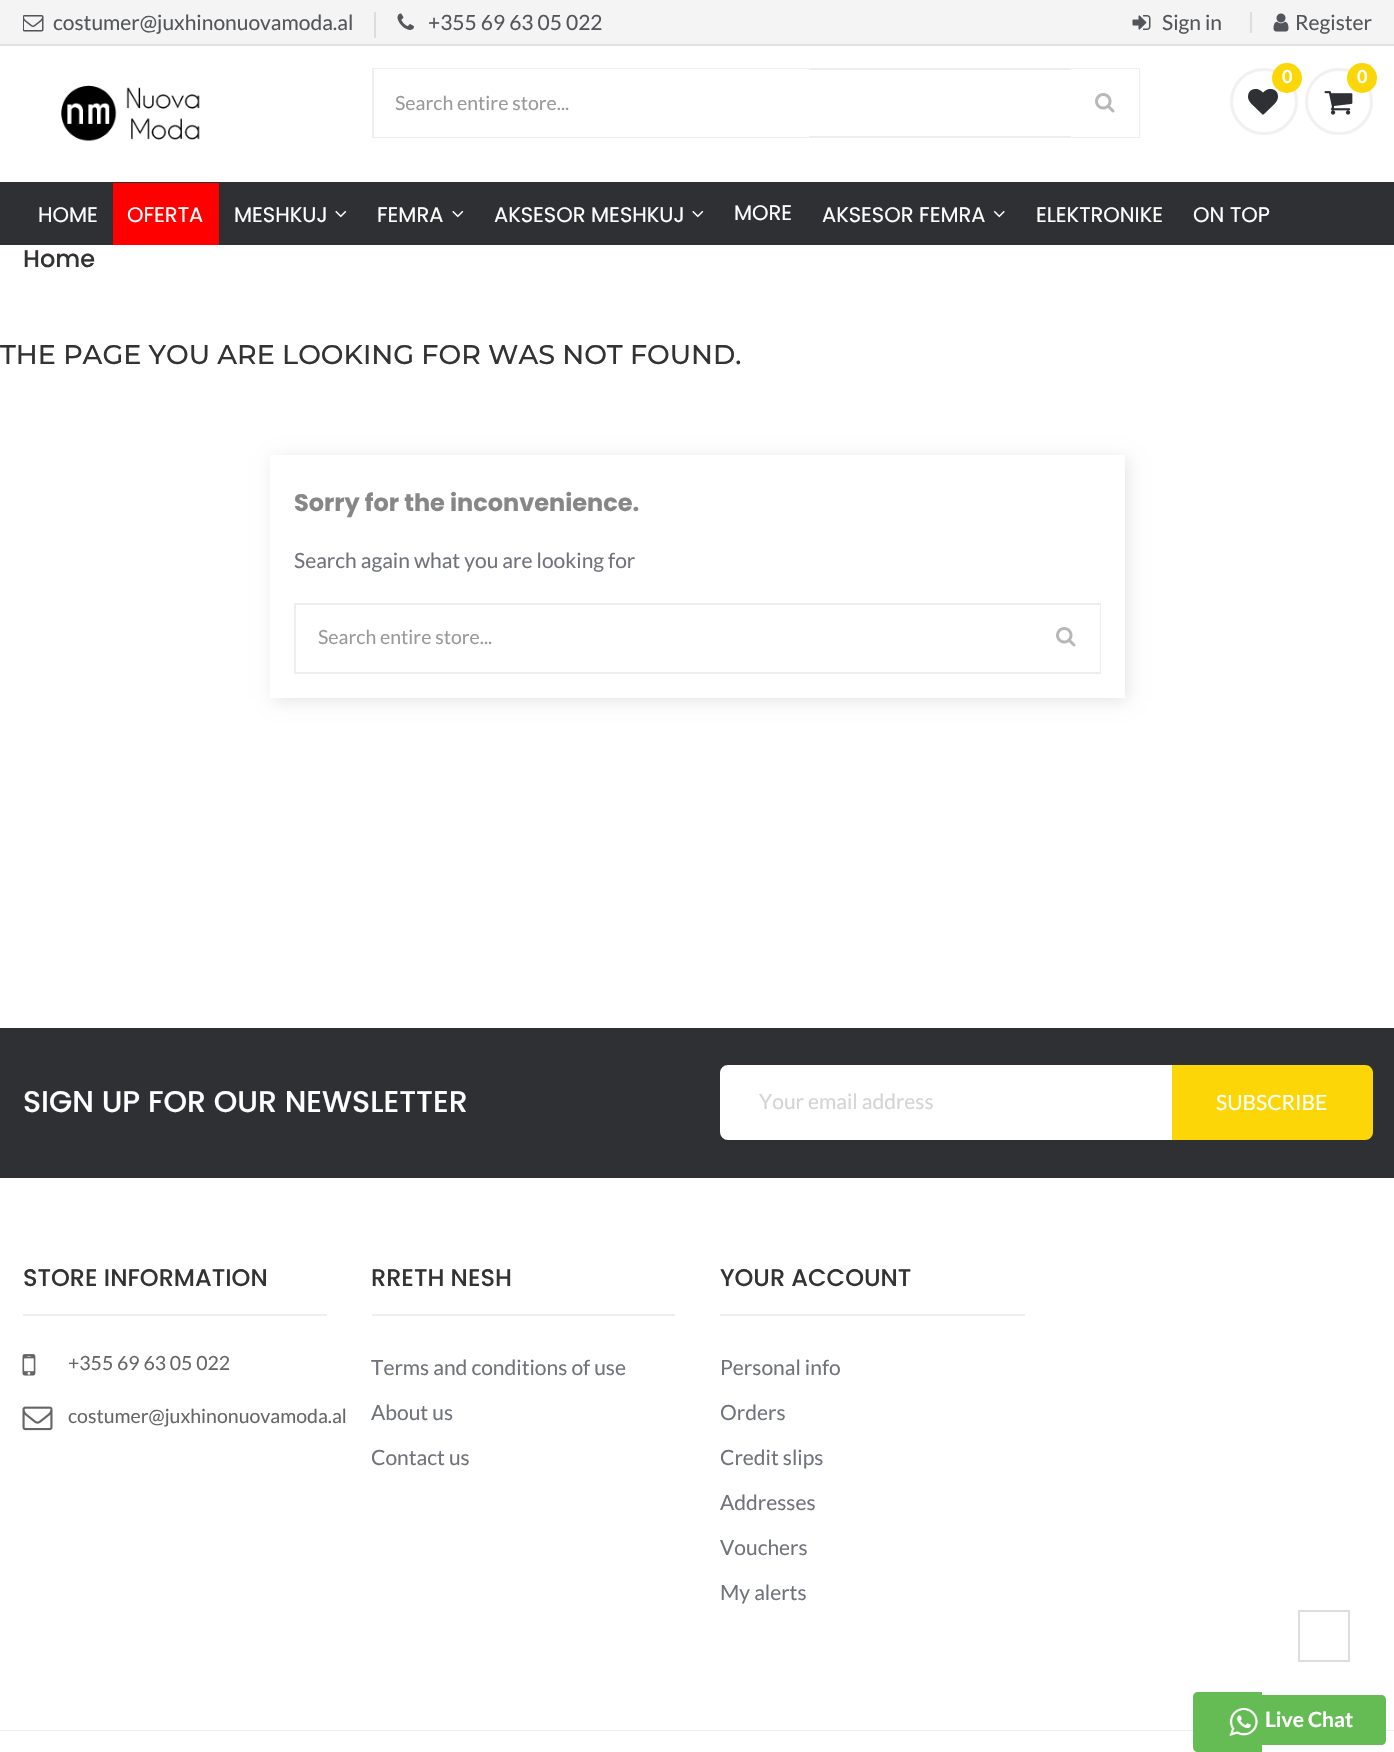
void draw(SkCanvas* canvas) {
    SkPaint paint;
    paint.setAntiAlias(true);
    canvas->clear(0xFFFFFFFF);
    paint.setColor(0xFFF4F4F4);
    canvas->drawRect(SkRect::MakeXYWH(0, 0, 1394, 44), paint);
    paint.setColor(0xFFE2E2E4);
    canvas->drawRect(SkRect::MakeXYWH(0, 44, 1394, 2), paint);
    canvas->drawImageRect(SkImages::DeferredFromEncodedData(SkData::MakeFromFileName("img1.png")), SkRect::MakeXYWH(23, 15, 21, 17), SkSamplingOptions());
    SkFont font1(fontMgr->matchFamilyStyle("Lato", SkFontStyle::Normal()), 21);
    font1.setSubpixel(true);
    paint.setColor(0xFF53555A);
    canvas->drawString("costumer@juxhinonuovamoda.al", 53, 30, font1, paint);
    paint.setColor(0xFFDDDDDD);
    canvas->drawRect(SkRect::MakeXYWH(374, 12, 2, 26), paint);
    canvas->drawImageRect(SkImages::DeferredFromEncodedData(SkData::MakeFromFileName("img2.png")), SkRect::MakeXYWH(397, 13, 17, 17), SkSamplingOptions());
    paint.setColor(0xFF53555A);
    canvas->drawString("+355 69 63 05 022", 428, 30, font1, paint);
    canvas->drawImageRect(SkImages::DeferredFromEncodedData(SkData::MakeFromFileName("img3.png")), SkRect::MakeXYWH(1132, 15, 19, 15), SkSamplingOptions());
    canvas->drawString("Sign in", 1162, 30, font1, paint);
    paint.setColor(0xFFDDDDDD);
    canvas->drawRect(SkRect::MakeXYWH(1250, 12, 2, 21), paint);
    canvas->drawImageRect(SkImages::DeferredFromEncodedData(SkData::MakeFromFileName("img4.png")), SkRect::MakeXYWH(1273, 13, 16, 19), SkSamplingOptions());
    paint.setColor(0xFF53555A);
    canvas->drawString("Register", 1295, 30, font1, paint);
    paint.setStyle(SkPaint::kStroke_Style);
    paint.setStrokeWidth(3);
    paint.setColor(0xFFF1F1F1);
    canvas->drawRoundRect(SkRect::MakeXYWH(1231.5f, 69.5f, 65, 64), 32, 32, paint);
    canvas->drawImageRect(SkImages::DeferredFromEncodedData(SkData::MakeFromFileName("img5.png")), SkRect::MakeXYWH(1248, 88, 30, 27), SkSamplingOptions());
    paint.setStyle(SkPaint::kFill_Style);
    paint.setColor(0xFFFCD708);
    canvas->drawCircle(1287, 78, 15, paint);
    SkFont font2(fontMgr->matchFamilyStyle("Lato", SkFontStyle::Bold()), 18);
    font2.setSubpixel(true);
    paint.setColor(0xFFFFFFFF);
    canvas->drawString("0", 1282, 83, font2, paint);
    paint.setStyle(SkPaint::kStroke_Style);
    paint.setColor(0xFFF1F1F1);
    canvas->drawRoundRect(SkRect::MakeXYWH(1306.5f, 69.5f, 65, 64), 32, 32, paint);
    canvas->drawImageRect(SkImages::DeferredFromEncodedData(SkData::MakeFromFileName("img6.png")), SkRect::MakeXYWH(1324, 91, 29, 24), SkSamplingOptions());
    paint.setStyle(SkPaint::kFill_Style);
    paint.setColor(0xFFFCD708);
    canvas->drawCircle(1362, 78, 15, paint);
    paint.setColor(0xFFFFFFFF);
    canvas->drawString("0", 1357, 83, font2, paint);
    canvas->drawImageRect(SkImages::DeferredFromEncodedData(SkData::MakeFromFileName("img7.png")), SkRect::MakeXYWH(61, 85, 139, 56), SkSamplingOptions());
    paint.setStyle(SkPaint::kStroke_Style);
    paint.setStrokeWidth(2);
    paint.setColor(0xFFEEEEEE);
    canvas->drawRect(SkRect::MakeXYWH(373, 69, 766, 68), paint);
    paint.setStyle(SkPaint::kFill_Style);
    paint.setColor(0xFFFFFFFF);
    canvas->drawRect(SkRect::MakeXYWH(374, 69, 435, 68), paint);
    SkFont font3(fontMgr->matchFamilyStyle("Lato", SkFontStyle::Normal()), 19.5f);
    font3.setSubpixel(true);
    paint.setColor(0xFF999999);
    canvas->drawString("Search entire store...", 395, 110, font3, paint);
    paint.setColor(0xFFFFFFFF);
    canvas->drawRect(SkRect::MakeXYWH(1071, 69, 68, 68), paint);
    canvas->drawImageRect(SkImages::DeferredFromEncodedData(SkData::MakeFromFileName("img8.png")), SkRect::MakeXYWH(1095, 93, 20, 20), SkSamplingOptions());
    paint.setColor(0xFF2F3034);
    canvas->drawRect(SkRect::MakeXYWH(0, 182, 1394, 63), paint);
    SkFont font4(fontMgr->matchFamilyStyle("Poppins", SkFontStyle::Normal()), 21);
    font4.setSubpixel(true);
    paint.setColor(0xFFFFFFFF);
    canvas->drawString("HOME", 38, 222, font4, paint);
    paint.setColor(0xFFFF0000);
    canvas->drawRect(SkRect::MakeXYWH(113, 183, 106, 62), paint);
    paint.setColor(0xFFFFFFFF);
    canvas->drawString("OFERTA", 127, 222, font4, paint);
    canvas->drawString("MESHKUJ", 234, 222, font4, paint);
    canvas->drawImageRect(SkImages::DeferredFromEncodedData(SkData::MakeFromFileName("img9.png")), SkRect::MakeXYWH(335, 210, 12, 8), SkSamplingOptions());
    canvas->drawString("FEMRA", 377, 222, font4, paint);
    canvas->drawImageRect(SkImages::DeferredFromEncodedData(SkData::MakeFromFileName("img9.png")), SkRect::MakeXYWH(452, 210, 12, 8), SkSamplingOptions());
    canvas->drawString("AKSESOR MESHKUJ", 494, 222, font4, paint);
    canvas->drawImageRect(SkImages::DeferredFromEncodedData(SkData::MakeFromFileName("img9.png")), SkRect::MakeXYWH(692, 210, 12, 8), SkSamplingOptions());
    canvas->drawString("MORE", 734, 220, font4, paint);
    canvas->drawString("AKSESOR FEMRA", 822, 222, font4, paint);
    canvas->drawImageRect(SkImages::DeferredFromEncodedData(SkData::MakeFromFileName("img10.png")), SkRect::MakeXYWH(993, 210, 12, 8), SkSamplingOptions());
    canvas->drawString("ELEKTRONIKE", 1036, 222, font4, paint);
    canvas->drawString("ON TOP", 1193, 222, font4, paint);
    SkFont font5(fontMgr->matchFamilyStyle("Poppins", SkFontStyle(500, SkFontStyle::kNormal_Width, SkFontStyle::kUpright_Slant)), 24);
    font5.setSubpixel(true);
    paint.setColor(0xFF333333);
    canvas->drawString("Home", 23, 267, font5, paint);
    SkFont font6(fontMgr->matchFamilyStyle("Montserrat", SkFontStyle(500, SkFontStyle::kNormal_Width, SkFontStyle::kUpright_Slant)), 27);
    font6.setSubpixel(true);
    canvas->drawString("THE PAGE YOU ARE LOOKING FOR WAS NOT FOUND.", 0, 364, font6, paint);
    paint.setColor(0x1A000000);
    paint.setMaskFilter(SkMaskFilter::MakeBlur(kNormal_SkBlurStyle, 8));
    canvas->drawRect(SkRect::MakeXYWH(273, 458, 855, 243), paint);
    paint.setMaskFilter(nullptr);
    paint.setColor(0xFFFFFFFF);
    canvas->drawRect(SkRect::MakeXYWH(270, 455, 855, 243), paint);
    SkFont font7(fontMgr->matchFamilyStyle("Poppins", SkFontStyle::Bold()), 24);
    font7.setSubpixel(true);
    paint.setColor(0xFF878787);
    canvas->drawString("Sorry for the inconvenience.", 294, 511, font7, paint);
    paint.setColor(0xFF71737A);
    canvas->drawString("Search again what you are looking for", 294, 568, font1, paint);
    paint.setStyle(SkPaint::kStroke_Style);
    paint.setColor(0xFFEEEEEE);
    canvas->drawRect(SkRect::MakeXYWH(295, 604, 805, 69), paint);
    paint.setStyle(SkPaint::kFill_Style);
    paint.setColor(0xFF999999);
    canvas->drawString("Search entire store...", 318, 644, font3, paint);
    paint.setColor(0xFFFFFFFF);
    canvas->drawRect(SkRect::MakeXYWH(1099, 605, 1, 67), paint);
    canvas->drawImageRect(SkImages::DeferredFromEncodedData(SkData::MakeFromFileName("img8.png")), SkRect::MakeXYWH(1056, 627, 20, 20), SkSamplingOptions());
    paint.setColor(0xFF2F3034);
    canvas->drawRect(SkRect::MakeXYWH(0, 1028, 1394, 150), paint);
    SkFont font8(fontMgr->matchFamilyStyle("Poppins", SkFontStyle(500, SkFontStyle::kNormal_Width, SkFontStyle::kUpright_Slant)), 30);
    font8.setSubpixel(true);
    paint.setColor(0xFFFFFFFF);
    canvas->drawString("SIGN UP FOR OUR NEWSLETTER", 23, 1112, font8, paint);
    canvas->drawPath(SkPathBuilder().moveTo(728, 1066).lineTo(1171, 1066).lineTo(1171, 1139).lineTo(728, 1139).cubicTo(724, 1139, 721, 1136, 721, 1132).lineTo(721, 1073).cubicTo(721, 1069, 724, 1066, 728, 1066).close().detach(), paint);
    paint.setStyle(SkPaint::kStroke_Style);
    canvas->drawPath(SkPathBuilder().moveTo(728, 1066).lineTo(1171, 1066).lineTo(1171, 1139).lineTo(728, 1139).cubicTo(724, 1139, 721, 1136, 721, 1132).lineTo(721, 1073).cubicTo(721, 1069, 724, 1066, 728, 1066).close().detach(), paint);
    paint.setStyle(SkPaint::kFill_Style);
    paint.setColor(0xFFD5D4D3);
    canvas->drawString("Your email address", 759, 1109, font1, paint);
    paint.setColor(0xFFFCD606);
    canvas->drawPath(SkPathBuilder().moveTo(1172, 1065).lineTo(1365, 1065).cubicTo(1369.5f, 1065, 1373, 1068.5f, 1373, 1073).lineTo(1373, 1132).cubicTo(1373, 1136.5f, 1369.5f, 1140, 1365, 1140).lineTo(1172, 1140).close().detach(), paint);
    paint.setColor(0xFFFFFFFF);
    canvas->drawString("SUBSCRIBE", 1216, 1110, font1, paint);
    paint.setColor(0xFFEEEEEE);
    canvas->drawRect(SkRect::MakeXYWH(0, 1730, 1394, 1), paint);
    canvas->drawRect(SkRect::MakeXYWH(23, 1314, 304, 2), paint);
    paint.setColor(0xFF333333);
    canvas->drawString("STORE INFORMATION", 23, 1286, font5, paint);
    canvas->drawImageRect(SkImages::DeferredFromEncodedData(SkData::MakeFromFileName("img11.png")), SkRect::MakeXYWH(22, 1354, 14, 22), SkSamplingOptions());
    paint.setColor(0xFF666666);
    canvas->drawString("+355 69 63 05 022", 68, 1370, font3, paint);
    canvas->drawImageRect(SkImages::DeferredFromEncodedData(SkData::MakeFromFileName("img12.png")), SkRect::MakeXYWH(22, 1406, 31, 25), SkSamplingOptions());
    canvas->drawString("costumer@juxhinonuovamoda.al", 68, 1423, font3, paint);
    paint.setColor(0xFFEEEEEE);
    canvas->drawRect(SkRect::MakeXYWH(372, 1314, 303, 2), paint);
    paint.setColor(0xFF333333);
    canvas->drawString("RRETH NESH", 371, 1286, font5, paint);
    paint.setColor(0xFF71737A);
    canvas->drawString("Terms and conditions of use", 371, 1375, font1, paint);
    canvas->drawString("About us", 371, 1420, font1, paint);
    canvas->drawString("Contact us", 371, 1465, font1, paint);
    paint.setColor(0xFFEEEEEE);
    canvas->drawRect(SkRect::MakeXYWH(720, 1314, 305, 2), paint);
    paint.setColor(0xFF333333);
    canvas->drawString("YOUR ACCOUNT", 720, 1286, font5, paint);
    paint.setColor(0xFF71737A);
    canvas->drawString("Personal info", 720, 1375, font1, paint);
    canvas->drawString("Orders", 720, 1420, font1, paint);
    canvas->drawString("Credit slips", 720, 1465, font1, paint);
    canvas->drawString("Addresses", 720, 1510, font1, paint);
    canvas->drawString("Vouchers", 720, 1555, font1, paint);
    canvas->drawString("My alerts", 720, 1600, font1, paint);
    paint.setColor(0xFF65BC54);
    canvas->drawPath(SkPathBuilder().moveTo(1198, 1692).lineTo(1262, 1692).lineTo(1262, 1752).lineTo(1198, 1752).cubicTo(1195, 1752, 1193, 1750, 1193, 1747).lineTo(1193, 1697).cubicTo(1193, 1694, 1195, 1692, 1198, 1692).close().detach(), paint);
    canvas->drawImageRect(SkImages::DeferredFromEncodedData(SkData::MakeFromFileName("img13.png")), SkRect::MakeXYWH(1229, 1708, 29, 28), SkSamplingOptions());
    canvas->drawPath(SkPathBuilder().moveTo(1262, 1695).lineTo(1381, 1695).cubicTo(1384, 1695, 1386, 1697, 1386, 1700).lineTo(1386, 1740).cubicTo(1386, 1743, 1384, 1745, 1381, 1745).lineTo(1262, 1745).close().detach(), paint);
    SkFont font9(fontMgr->matchFamilyStyle("Lato", SkFontStyle::Bold()), 21);
    font9.setSubpixel(true);
    paint.setColor(0xFFFFFFFF);
    canvas->drawString("Live Chat", 1265, 1727, font9, paint);
    paint.setStyle(SkPaint::kStroke_Style);
    paint.setColor(0xFFDDDDDD);
    canvas->drawRect(SkRect::MakeXYWH(1299, 1611, 50, 50), paint);
}
